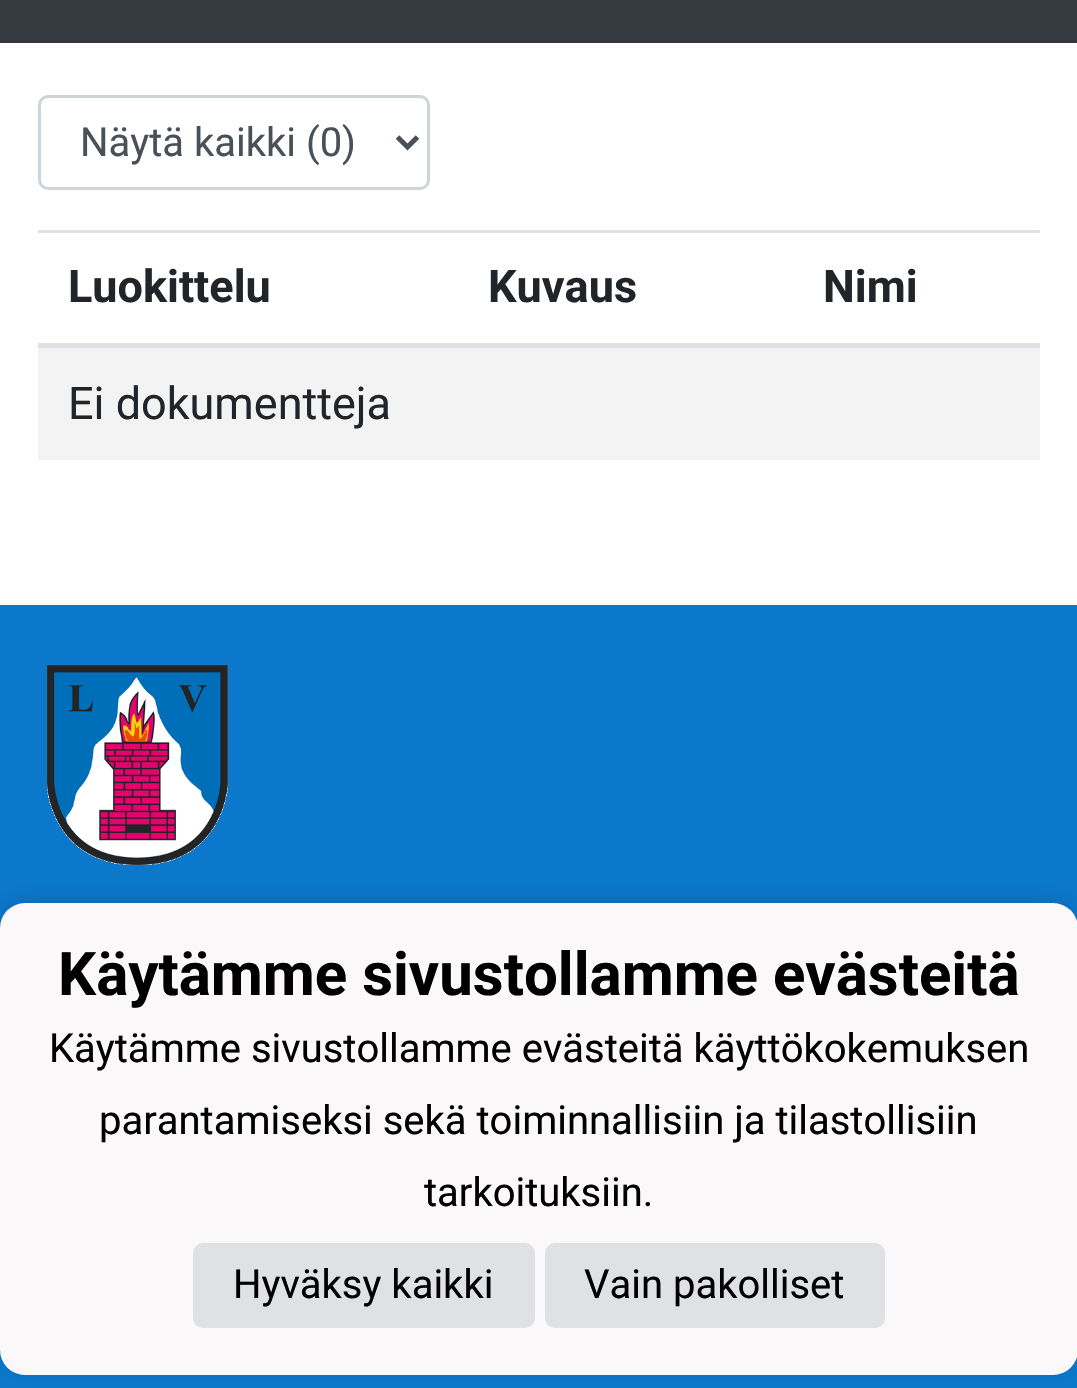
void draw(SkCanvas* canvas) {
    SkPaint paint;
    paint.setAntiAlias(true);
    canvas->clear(0xFFFFFFFF);
    paint.setColor(0xFF343A40);
    canvas->drawRect(SkRect::MakeXYWH(0, 0, 1077, 40), paint);
    paint.setColor(0xFF32383E);
    canvas->drawRect(SkRect::MakeXYWH(0, 40, 1077, 3), paint);
    paint.setStyle(SkPaint::kStroke_Style);
    paint.setStrokeWidth(3);
    paint.setColor(0xFFCED4DA);
    canvas->drawRoundRect(SkRect::MakeXYWH(39.5f, 96.5f, 389, 92), 8.5f, 8.5f, paint);
    paint.setStrokeWidth(5);
    paint.setColor(0xFF495057);
    canvas->drawPath(SkPathBuilder().moveTo(397.5f, 137).lineTo(407.5f, 147).lineTo(417.5f, 137).detach(), paint);
    SkFont font1(fontMgr->matchFamilyStyle("Roboto", SkFontStyle::Normal()), 40);
    font1.setSubpixel(true);
    paint.setStyle(SkPaint::kFill_Style);
    canvas->drawString("Näytä kaikki (0)", 80, 156, font1, paint);
    SkFont font2(fontMgr->matchFamilyStyle("Roboto", SkFontStyle::Bold()), 45);
    font2.setSubpixel(true);
    paint.setColor(0xFF212529);
    canvas->drawString("Luokittelu", 68, 302, font2, paint);
    canvas->drawString("Kuvaus", 488, 302, font2, paint);
    paint.setColor(0xFFDEE2E6);
    canvas->drawRect(SkRect::MakeXYWH(38, 230, 1002, 3), paint);
    canvas->drawRect(SkRect::MakeXYWH(38, 343, 1002, 5), paint);
    paint.setColor(0xFF212529);
    canvas->drawString("Nimi", 823, 302, font2, paint);
    paint.setColor(0xFFF3F3F3);
    canvas->drawRect(SkRect::MakeXYWH(38, 348, 1002, 112), paint);
    SkFont font3(fontMgr->matchFamilyStyle("Roboto", SkFontStyle::Normal()), 45);
    font3.setSubpixel(true);
    paint.setColor(0xFF212529);
    canvas->drawString("Ei dokumentteja", 68, 419, font3, paint);
    paint.setColor(0xFF0B78CB);
    canvas->drawRect(SkRect::MakeXYWH(0, 605, 1077, 783), paint);
    canvas->drawImageRect(SkImages::DeferredFromEncodedData(SkData::MakeFromFileName("img1.png")), SkRect::MakeXYWH(47, 665, 181, 200), SkSamplingOptions());
    paint.setColor(0x1A000000);
    paint.setMaskFilter(SkMaskFilter::MakeBlur(kNormal_SkBlurStyle, 12.5f));
    canvas->drawRoundRect(SkRect::MakeXYWH(0, 898, 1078, 472), 25, 25, paint);
    paint.setMaskFilter(nullptr);
    paint.setColor(0xFFFAF8F8);
    canvas->drawRoundRect(SkRect::MakeXYWH(0, 903, 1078, 472), 25, 25, paint);
    SkFont font4(fontMgr->matchFamilyStyle("Roboto", SkFontStyle::Bold()), 60);
    font4.setSubpixel(true);
    paint.setColor(0xFF000000);
    canvas->drawString("Käytämme sivustollamme evästeitä", 58, 995, font4, paint);
    canvas->drawString("Käytämme sivustollamme evästeitä käyttökokemuksen", 49, 1062, font1, paint);
    canvas->drawString("parantamiseksi sekä toiminnallisiin ja tilastollisiin", 99, 1134, font1, paint);
    canvas->drawString("tarkoituksiin.", 424, 1206, font1, paint);
    paint.setColor(0xFFDFE1E5);
    canvas->drawRoundRect(SkRect::MakeXYWH(193, 1243, 342, 85), 10, 10, paint);
    paint.setColor(0xFF000000);
    canvas->drawString("Hyväksy kaikki", 233, 1298, font1, paint);
    paint.setColor(0xFFDFE1E5);
    canvas->drawRoundRect(SkRect::MakeXYWH(545, 1243, 340, 85), 10, 10, paint);
    paint.setColor(0xFF000000);
    canvas->drawString("Vain pakolliset", 584, 1298, font1, paint);
}
